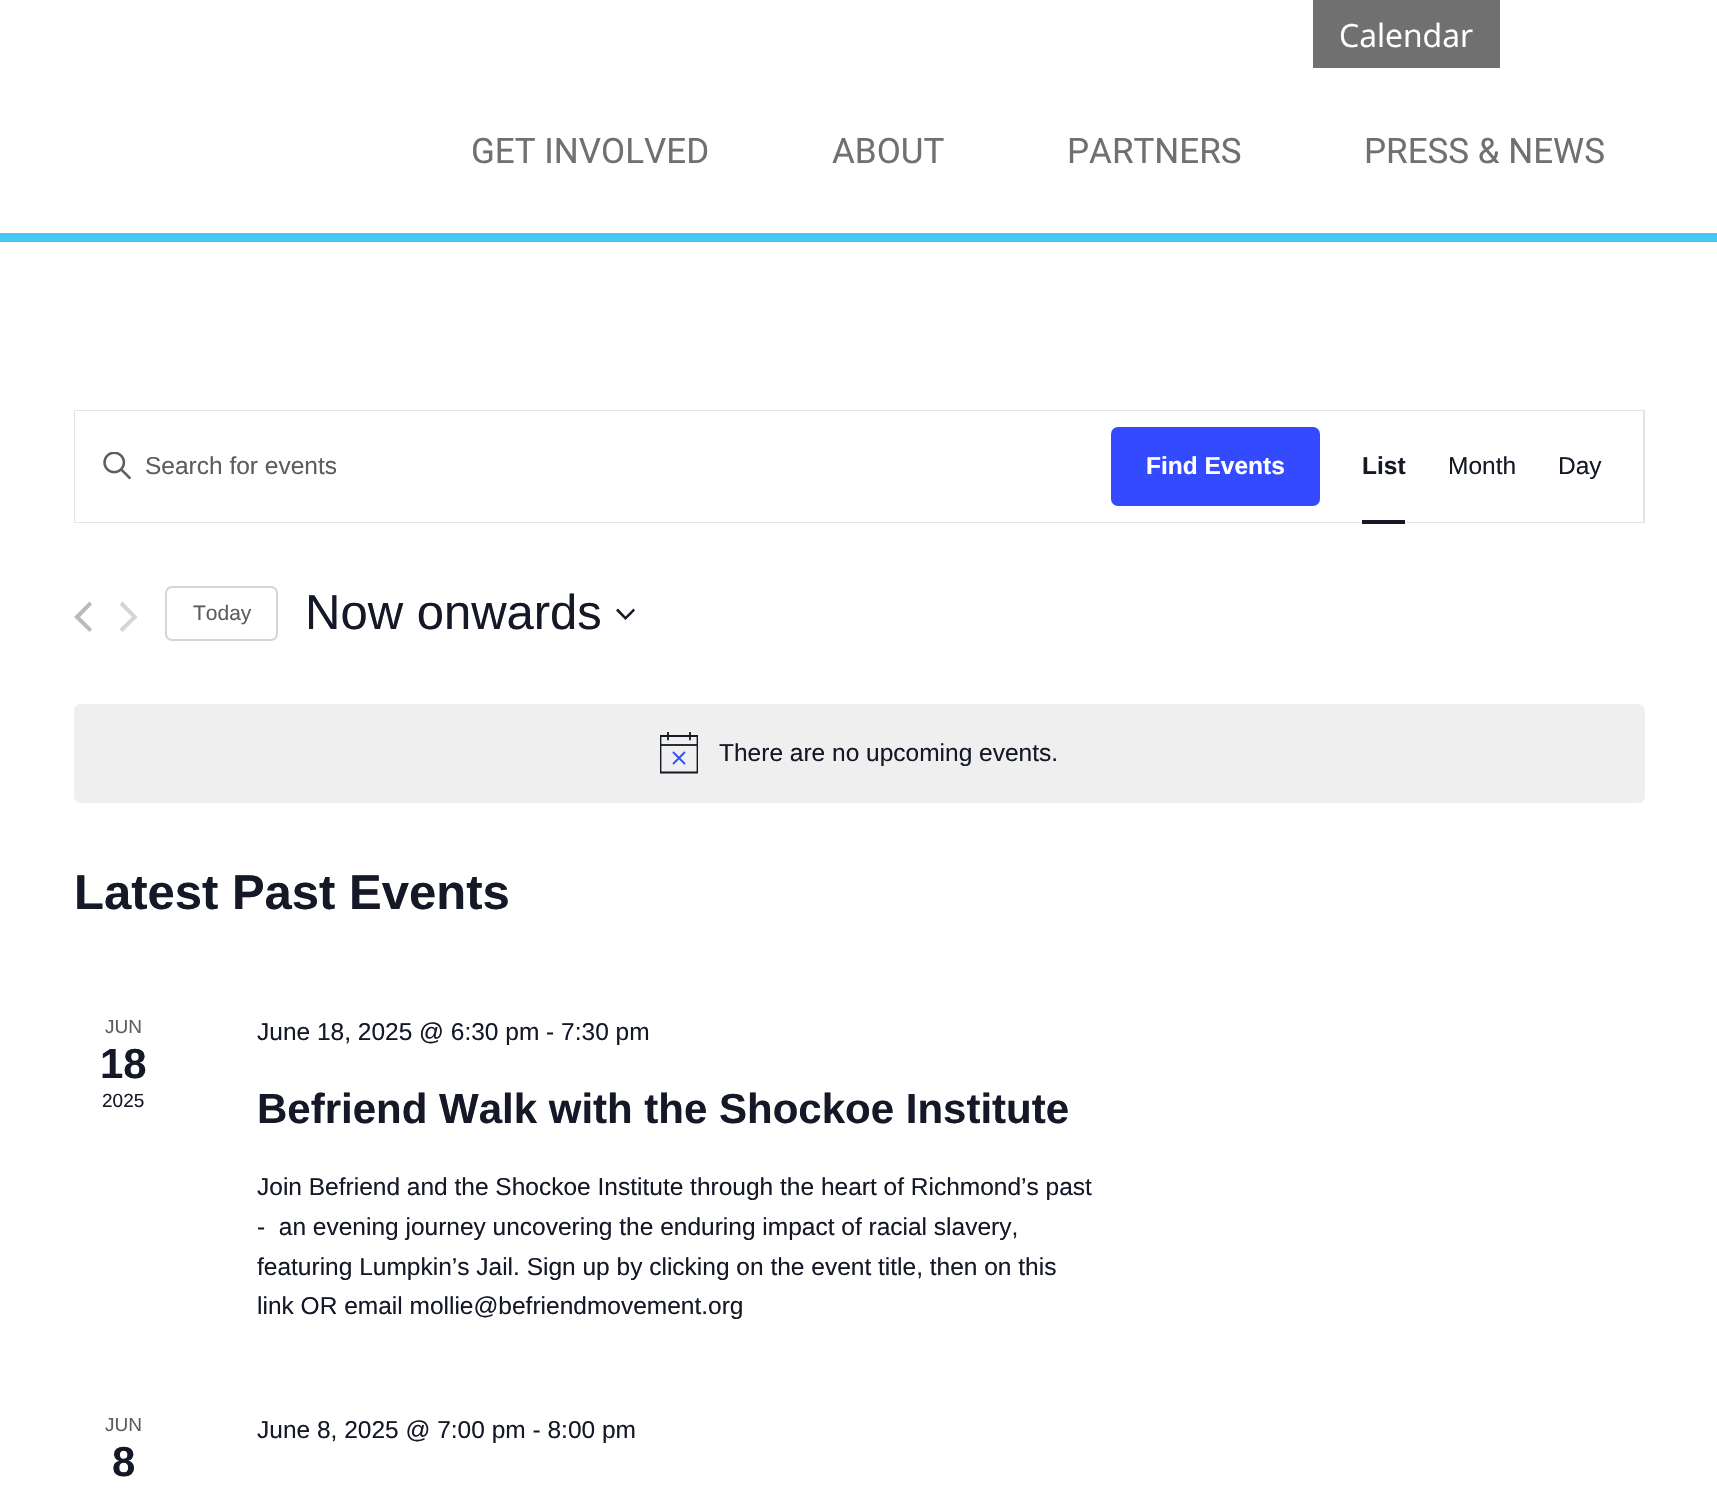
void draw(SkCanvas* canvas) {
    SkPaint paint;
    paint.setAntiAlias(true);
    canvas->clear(0xFFFFFFFF);
    paint.setColor(0xFF707070);
    canvas->drawRect(SkRect::MakeXYWH(1313, 0, 187, 68), paint);
    SkFont font1(fontMgr->matchFamilyStyle("Open Sans", SkFontStyle::Normal()), 32);
    font1.setSubpixel(true);
    paint.setColor(0xFFFFFFFF);
    canvas->drawString("Calendar", 1339, 47, font1, paint);
    paint.setColor(0xFF46C8F4);
    canvas->drawRect(SkRect::MakeXYWH(0, 233, 1717, 9), paint);
    SkFont font2(fontMgr->matchFamilyStyle("Roboto", SkFontStyle::Normal()), 35);
    font2.setSubpixel(true);
    paint.setColor(0xFF707070);
    canvas->drawString("GET INVOLVED", 471, 163, font2, paint);
    canvas->drawString("ABOUT", 832, 163, font2, paint);
    canvas->drawString("PARTNERS", 1067, 163, font2, paint);
    canvas->drawString("PRESS & NEWS", 1364, 163, font2, paint);
    paint.setStyle(SkPaint::kStroke_Style);
    paint.setStrokeWidth(2);
    paint.setColor(0xFFE4E4E4);
    canvas->drawRect(SkRect::MakeXYWH(75, 411, 1569, 111), paint);
    paint.setStyle(SkPaint::kFill_Style);
    paint.setColor(0xFFFFFFFF);
    canvas->drawRect(SkRect::MakeXYWH(75, 411, 1568, 111), paint);
    canvas->drawImageRect(SkImages::DeferredFromEncodedData(SkData::MakeFromFileName("img1.png")), SkRect::MakeXYWH(103, 452, 28, 28), SkSamplingOptions());
    SkFont font3(fontMgr->matchFamilyStyle("Liberation Sans", SkFontStyle::Normal()), 24.5f);
    font3.setSubpixel(true);
    paint.setColor(0xFF5D5D5D);
    canvas->drawString("Search for events", 145, 474, font3, paint);
    paint.setColor(0xFF334AFF);
    canvas->drawRoundRect(SkRect::MakeXYWH(1111, 427, 209, 79), 7, 7, paint);
    SkFont font4(fontMgr->matchFamilyStyle("Liberation Sans", SkFontStyle::Bold()), 24.5f);
    font4.setSubpixel(true);
    paint.setColor(0xFFFFFFFF);
    canvas->drawString("Find Events", 1146, 474, font4, paint);
    paint.setColor(0xFF141827);
    canvas->drawString("List", 1362, 474, font4, paint);
    canvas->drawRect(SkRect::MakeXYWH(1362, 520, 43, 4), paint);
    canvas->drawString("Month", 1448, 474, font3, paint);
    canvas->drawString("Day", 1558, 474, font3, paint);
    paint.setColor(0xFFBABABA);
    canvas->drawPath(SkPathBuilder().moveTo(92, 629).lineTo(89.5f, 632).lineTo(74, 617).lineTo(89.5f, 601.5f).lineTo(92, 604.5f).lineTo(80, 617).close().detach(), paint);
    paint.setColor(0xFFD5D5D5);
    canvas->drawPath(SkPathBuilder().moveTo(119.5f, 604.5f).lineTo(122.5f, 601.5f).lineTo(137.5f, 617).lineTo(122.5f, 632).lineTo(119.5f, 629).lineTo(132, 617).close().detach(), paint);
    paint.setStyle(SkPaint::kStroke_Style);
    canvas->drawRoundRect(SkRect::MakeXYWH(166, 587, 111, 53), 6, 6, paint);
    SkFont font5(fontMgr->matchFamilyStyle("Liberation Sans", SkFontStyle::Normal()), 21);
    font5.setSubpixel(true);
    paint.setStyle(SkPaint::kFill_Style);
    paint.setColor(0xFF5D5D5D);
    canvas->drawString("Today", 193, 620, font5, paint);
    SkFont font6(fontMgr->matchFamilyStyle("Liberation Sans", SkFontStyle::Normal()), 49);
    font6.setSubpixel(true);
    paint.setColor(0xFF141827);
    canvas->drawString("Now onwards", 305, 629, font6, paint);
    canvas->drawPath(SkPathBuilder(SkPathFillType::kEvenOdd).moveTo(618, 608.5f).lineTo(625.5f, 616.5f).lineTo(633.5f, 608.5f).lineTo(635, 610.5f).lineTo(625.5f, 620).lineTo(616, 610.5f).close().detach(), paint);
    paint.setColor(0xFFEFEFF0);
    canvas->drawRoundRect(SkRect::MakeXYWH(74, 704, 1571, 99), 7, 7, paint);
    canvas->save();
    canvas->clipRect(SkRect::MakeXYWH(660, 732, 38, 43));
    paint.setStyle(SkPaint::kStroke_Style);
    paint.setStrokeWidth(1.8f);
    paint.setColor(0xFF141827);
    canvas->drawPath(SkPathBuilder().moveTo(660.5f, 736).lineTo(697.5f, 736).lineTo(697.5f, 772.5f).lineTo(660.5f, 772.5f).close().detach(), paint);
    canvas->restore();
    paint.setStrokeCap(SkPaint::kRound_Cap);
    paint.setColor(0xFF334AFF);
    canvas->drawPath(SkPathBuilder().moveTo(673.5f, 752.5f).lineTo(684.5f, 763.5f).moveTo(684.5f, 752.5f).lineTo(673.5f, 763.5f).detach(), paint);
    canvas->save();
    canvas->clipRect(SkRect::MakeXYWH(660, 732, 38, 43));
    paint.setColor(0xFF141827);
    canvas->drawPath(SkPathBuilder().moveTo(668, 732.5f).lineTo(668, 739.5f).moveTo(690, 732.5f).lineTo(690, 739.5f).detach(), paint);
    canvas->restore();
    paint.setStyle(SkPaint::kFill_Style);
    paint.setColor(0xE6141827);
    canvas->drawRect(SkRect::MakeXYWH(660, 744, 38, 2), paint);
    paint.setColor(0xFF141827);
    canvas->drawString("There are no upcoming events.", 719, 761, font3, paint);
    SkFont font7(fontMgr->matchFamilyStyle("Liberation Sans", SkFontStyle::Bold()), 49);
    font7.setSubpixel(true);
    canvas->drawString("Latest Past Events", 74, 909, font7, paint);
    SkFont font8(fontMgr->matchFamilyStyle("Liberation Sans", SkFontStyle::Normal()), 19);
    font8.setSubpixel(true);
    paint.setColor(0xFF5D5D5D);
    canvas->drawString("JUN", 105, 1033, font8, paint);
    SkFont font9(fontMgr->matchFamilyStyle("Liberation Sans", SkFontStyle::Bold()), 42);
    font9.setSubpixel(true);
    paint.setColor(0xFF141827);
    canvas->drawString("18", 100, 1078, font9, paint);
    canvas->drawString("2025", 102, 1107, font8, paint);
    canvas->drawString("June 18, 2025 @ 6:30 pm - 7:30 pm", 257, 1040, font3, paint);
    canvas->drawString("Befriend Walk with the Shockoe Institute", 257, 1123, font9, paint);
    canvas->drawString("Join Befriend and the Shockoe Institute through the heart of Richmond’s past", 257, 1195, font3, paint);
    canvas->drawString("-  an evening journey uncovering the enduring impact of racial slavery,", 257, 1235, font3, paint);
    canvas->drawString("featuring Lumpkin’s Jail. Sign up by clicking on the event title, then on this", 257, 1275, font3, paint);
    canvas->drawString("link OR email mollie@befriendmovement.org", 257, 1314, font3, paint);
    paint.setColor(0xFF5D5D5D);
    canvas->drawString("JUN", 105, 1431, font8, paint);
    paint.setColor(0xFF141827);
    canvas->drawString("8", 112, 1476, font9, paint);
    canvas->drawString("June 8, 2025 @ 7:00 pm - 8:00 pm", 257, 1438, font3, paint);
}
